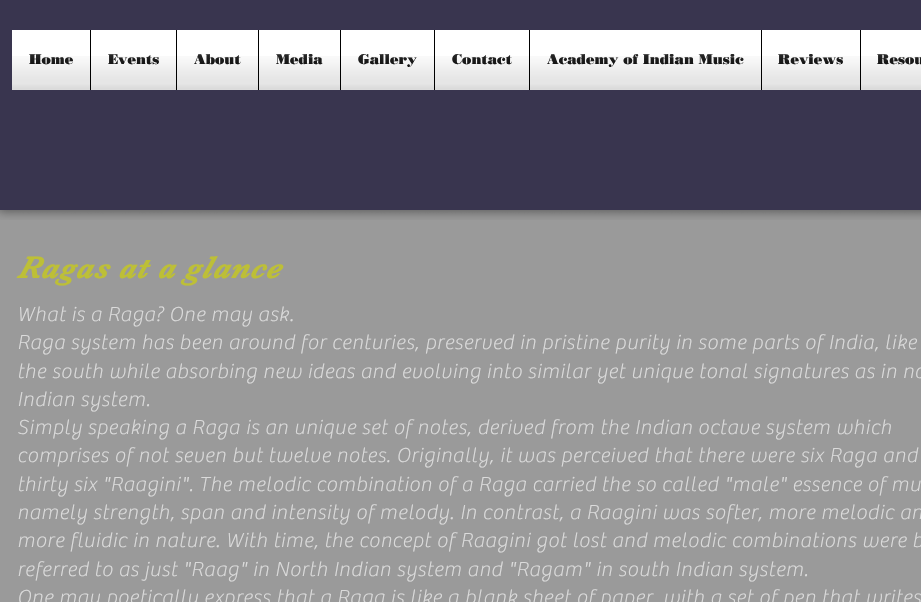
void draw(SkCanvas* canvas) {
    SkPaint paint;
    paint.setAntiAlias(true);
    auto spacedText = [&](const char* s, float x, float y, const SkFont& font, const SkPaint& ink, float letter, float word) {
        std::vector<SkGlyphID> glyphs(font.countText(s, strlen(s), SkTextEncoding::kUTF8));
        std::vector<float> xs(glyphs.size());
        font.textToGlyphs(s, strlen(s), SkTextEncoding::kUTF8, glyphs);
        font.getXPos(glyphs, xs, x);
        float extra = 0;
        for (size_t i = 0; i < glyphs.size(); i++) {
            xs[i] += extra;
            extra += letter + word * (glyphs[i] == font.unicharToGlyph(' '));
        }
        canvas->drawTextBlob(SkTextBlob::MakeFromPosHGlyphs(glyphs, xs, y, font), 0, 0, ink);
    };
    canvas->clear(0xFF9A9A9A);
    paint.setColor(0xFF39354F);
    canvas->drawRect(SkRect::MakeXYWH(0, 0, 921, 210), paint);
    canvas->drawImageRect(SkImages::DeferredFromEncodedData(SkData::MakeFromFileName("img1.png")), SkRect::MakeXYWH(0, 210, 35, 10), SkSamplingOptions());
    canvas->drawImageRect(SkImages::DeferredFromEncodedData(SkData::MakeFromFileName("img2.png")), SkRect::MakeXYWH(35, 210, 886, 10), SkSamplingOptions());
    paint.setColor(0xFFFFFFFF);
    canvas->drawRect(SkRect::MakeXYWH(12, 30, 78, 60), paint);
    SkFont font1(fontMgr->matchFamilyStyle("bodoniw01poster", SkFontStyle(900, SkFontStyle::kNormal_Width, SkFontStyle::kUpright_Slant)), 14);
    font1.setSubpixel(true);
    paint.setColor(0xFF000000);
    canvas->drawString("Home", 29, 64, font1, paint);
    canvas->drawImageRect(SkImages::DeferredFromEncodedData(SkData::MakeFromFileName("img3.png")), SkRect::MakeXYWH(29, 54, 44, 10), SkSamplingOptions());
    canvas->drawImageRect(SkImages::DeferredFromEncodedData(SkData::MakeFromFileName("img4.png")), SkRect::MakeXYWH(12, 56, 78, 34), SkSamplingOptions());
    paint.setColor(0xFFFFFFFF);
    canvas->drawRect(SkRect::MakeXYWH(91, 30, 85, 60), paint);
    paint.setColor(0xFF000000);
    canvas->drawRect(SkRect::MakeXYWH(90, 30, 1, 60), paint);
    canvas->drawString("Events", 108, 64, font1, paint);
    canvas->drawImageRect(SkImages::DeferredFromEncodedData(SkData::MakeFromFileName("img5.png")), SkRect::MakeXYWH(108, 54, 51, 10), SkSamplingOptions());
    canvas->drawImageRect(SkImages::DeferredFromEncodedData(SkData::MakeFromFileName("img6.png")), SkRect::MakeXYWH(91, 56, 85, 34), SkSamplingOptions());
    paint.setColor(0xFFFFFFFF);
    canvas->drawRect(SkRect::MakeXYWH(177, 30, 81, 60), paint);
    paint.setColor(0xFF000000);
    canvas->drawRect(SkRect::MakeXYWH(176, 30, 1, 60), paint);
    canvas->drawString("About", 194, 64, font1, paint);
    canvas->drawImageRect(SkImages::DeferredFromEncodedData(SkData::MakeFromFileName("img7.png")), SkRect::MakeXYWH(194, 54, 47, 10), SkSamplingOptions());
    canvas->drawImageRect(SkImages::DeferredFromEncodedData(SkData::MakeFromFileName("img8.png")), SkRect::MakeXYWH(177, 56, 81, 34), SkSamplingOptions());
    paint.setColor(0xFFFFFFFF);
    canvas->drawRect(SkRect::MakeXYWH(259, 30, 81, 60), paint);
    paint.setColor(0xFF000000);
    canvas->drawRect(SkRect::MakeXYWH(258, 30, 1, 60), paint);
    canvas->drawString("Media", 276, 64, font1, paint);
    canvas->drawImageRect(SkImages::DeferredFromEncodedData(SkData::MakeFromFileName("img9.png")), SkRect::MakeXYWH(276, 54, 47, 10), SkSamplingOptions());
    canvas->drawImageRect(SkImages::DeferredFromEncodedData(SkData::MakeFromFileName("img10.png")), SkRect::MakeXYWH(259, 56, 81, 34), SkSamplingOptions());
    paint.setColor(0xFFFFFFFF);
    canvas->drawRect(SkRect::MakeXYWH(341, 30, 93, 60), paint);
    paint.setColor(0xFF000000);
    canvas->drawRect(SkRect::MakeXYWH(340, 30, 1, 60), paint);
    canvas->drawString("Gallery", 358, 64, font1, paint);
    canvas->drawImageRect(SkImages::DeferredFromEncodedData(SkData::MakeFromFileName("img11.png")), SkRect::MakeXYWH(358, 54, 59, 13), SkSamplingOptions());
    canvas->drawImageRect(SkImages::DeferredFromEncodedData(SkData::MakeFromFileName("img12.png")), SkRect::MakeXYWH(341, 56, 93, 34), SkSamplingOptions());
    paint.setColor(0xFFFFFFFF);
    canvas->drawRect(SkRect::MakeXYWH(435, 30, 94, 60), paint);
    paint.setColor(0xFF000000);
    canvas->drawRect(SkRect::MakeXYWH(434, 30, 1, 60), paint);
    canvas->drawString("Contact", 452, 64, font1, paint);
    canvas->drawImageRect(SkImages::DeferredFromEncodedData(SkData::MakeFromFileName("img13.png")), SkRect::MakeXYWH(452, 54, 60, 10), SkSamplingOptions());
    canvas->drawImageRect(SkImages::DeferredFromEncodedData(SkData::MakeFromFileName("img14.png")), SkRect::MakeXYWH(435, 56, 94, 34), SkSamplingOptions());
    paint.setColor(0xFFFFFFFF);
    canvas->drawRect(SkRect::MakeXYWH(530, 30, 231, 60), paint);
    paint.setColor(0xFF000000);
    canvas->drawRect(SkRect::MakeXYWH(529, 30, 1, 60), paint);
    canvas->drawString("Academy of Indian Music", 547, 64, font1, paint);
    canvas->drawImageRect(SkImages::DeferredFromEncodedData(SkData::MakeFromFileName("img15.png")), SkRect::MakeXYWH(547, 54, 197, 13), SkSamplingOptions());
    canvas->drawImageRect(SkImages::DeferredFromEncodedData(SkData::MakeFromFileName("img16.png")), SkRect::MakeXYWH(530, 56, 231, 34), SkSamplingOptions());
    paint.setColor(0xFFFFFFFF);
    canvas->drawRect(SkRect::MakeXYWH(762, 30, 98, 60), paint);
    paint.setColor(0xFF000000);
    canvas->drawRect(SkRect::MakeXYWH(761, 30, 1, 60), paint);
    canvas->drawString("Reviews", 778, 64, font1, paint);
    canvas->drawImageRect(SkImages::DeferredFromEncodedData(SkData::MakeFromFileName("img17.png")), SkRect::MakeXYWH(778, 54, 66, 10), SkSamplingOptions());
    canvas->drawImageRect(SkImages::DeferredFromEncodedData(SkData::MakeFromFileName("img18.png")), SkRect::MakeXYWH(762, 56, 98, 34), SkSamplingOptions());
    paint.setColor(0xFFFFFFFF);
    canvas->drawRect(SkRect::MakeXYWH(861, 30, 60, 60), paint);
    paint.setColor(0xFF000000);
    canvas->drawRect(SkRect::MakeXYWH(860, 30, 1, 60), paint);
    canvas->drawString("Resou", 877, 64, font1, paint);
    canvas->drawImageRect(SkImages::DeferredFromEncodedData(SkData::MakeFromFileName("img19.png")), SkRect::MakeXYWH(877, 54, 44, 10), SkSamplingOptions());
    canvas->drawImageRect(SkImages::DeferredFromEncodedData(SkData::MakeFromFileName("img20.png")), SkRect::MakeXYWH(861, 56, 60, 34), SkSamplingOptions());
    SkFont font2(fontMgr->matchFamilyStyle("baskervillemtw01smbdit", SkFontStyle::BoldItalic()), 31);
    font2.setSubpixel(true);
    paint.setColor(0xFFBDBF37);
    spacedText("Ragas at a glance", 17, 278, font2, paint, 1.5f, 0);
    SkFont font3(fontMgr->matchFamilyStyle("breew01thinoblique", SkFontStyle(100, SkFontStyle::kNormal_Width, SkFontStyle::kUpright_Slant)), 21);
    font3.setSubpixel(true);
    paint.setColor(0xFFDBDBDB);
    spacedText("What is a Raga? One may ask.", 17, 321, font3, paint, 0.63f, 0);
    spacedText("Raga system has been around for centuries, preserved in pristine purity in some parts of India, like", 17, 349, font3, paint, 0.63f, 0);
    spacedText("the south while absorbing new ideas and evolving into similar yet unique tonal signatures as in no", 17, 378, font3, paint, 0.63f, 0);
    spacedText("Indian system.", 17, 406, font3, paint, 0.63f, 0);
    spacedText("Simply speaking a Raga is an unique set of notes, derived from the Indian octave system which", 17, 434, font3, paint, 0.63f, 0);
    spacedText("comprises of not seven but twelve notes. Originally, it was perceived that there were six Raga and", 17, 462, font3, paint, 0.63f, 0);
    spacedText("thirty six \"Raagini\". The melodic combination of a Raga carried the so called \"male\" essence of mu", 17, 491, font3, paint, 0.63f, 0);
    spacedText("namely strength, span and intensity of melody. In contrast, a Raagini was softer, more melodic an", 17, 519, font3, paint, 0.63f, 0);
    spacedText("more fluidic in nature. With time, the concept of Raagini got lost and melodic combinations were b", 17, 547, font3, paint, 0.63f, 0);
    spacedText("referred to as just \"Raag\" in North Indian system and \"Ragam\" in south Indian system.", 17, 576, font3, paint, 0.63f, 0);
    spacedText("One may poetically express that a Raga is like a blank sheet of paper, with a set of pen that writes", 17, 604, font3, paint, 0.63f, 0);
}
